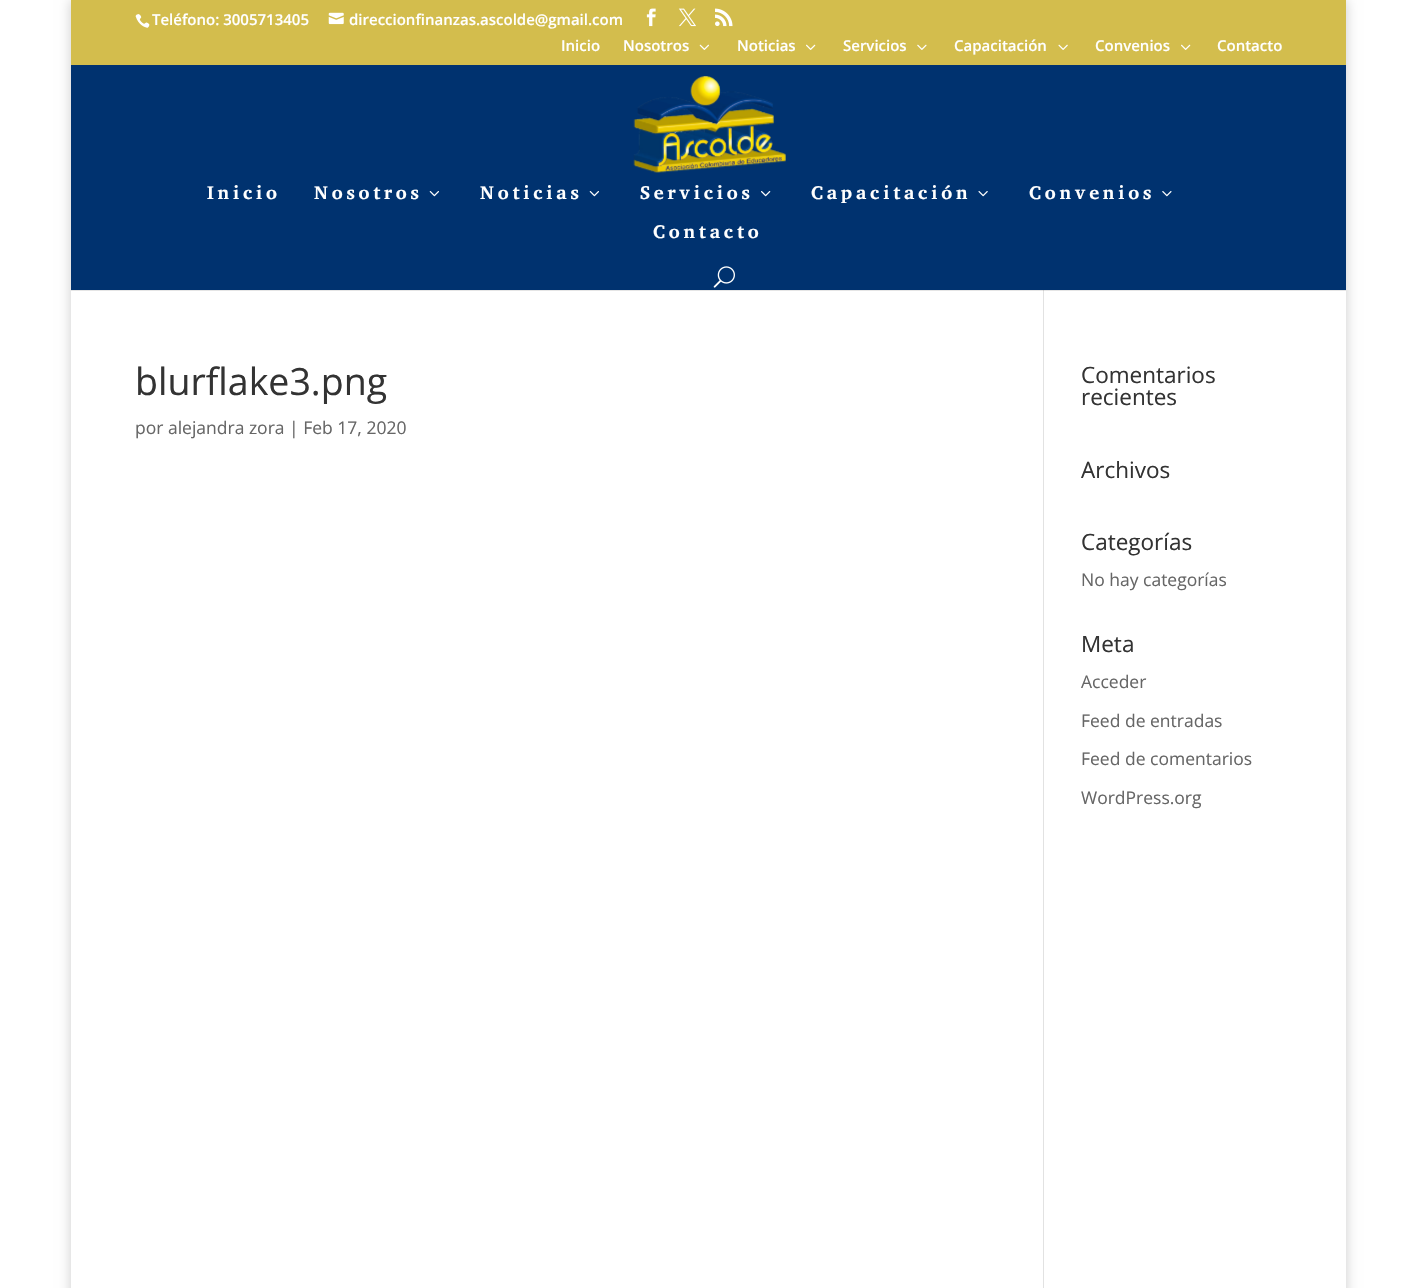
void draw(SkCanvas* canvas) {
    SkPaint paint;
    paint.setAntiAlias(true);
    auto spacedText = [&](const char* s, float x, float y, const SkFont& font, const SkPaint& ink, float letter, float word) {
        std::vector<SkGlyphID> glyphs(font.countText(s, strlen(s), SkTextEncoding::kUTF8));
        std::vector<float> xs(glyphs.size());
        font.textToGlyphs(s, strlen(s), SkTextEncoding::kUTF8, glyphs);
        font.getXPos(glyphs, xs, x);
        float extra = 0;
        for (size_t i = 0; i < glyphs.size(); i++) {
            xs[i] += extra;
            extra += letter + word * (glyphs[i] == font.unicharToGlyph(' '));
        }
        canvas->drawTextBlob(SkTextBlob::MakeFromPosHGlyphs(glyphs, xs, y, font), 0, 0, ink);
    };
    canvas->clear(0xFFFFFFFF);
    canvas->save();
    canvas->clipPath(SkPathBuilder(SkPathFillType::kEvenOdd).moveTo(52, 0).lineTo(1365, 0).lineTo(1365, 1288).lineTo(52, 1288).close().moveTo(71, 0).lineTo(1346, 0).lineTo(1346, 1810).lineTo(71, 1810).close().detach(), true);
    paint.setColor(0x33000000);
    paint.setMaskFilter(SkMaskFilter::MakeBlur(kNormal_SkBlurStyle, 6));
    canvas->drawRect(SkRect::MakeXYWH(71, 0, 1275, 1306), paint);
    paint.setMaskFilter(nullptr);
    canvas->restore();
    paint.setColor(0xB3C1A101);
    canvas->drawRect(SkRect::MakeXYWH(71, 0, 1275, 65), paint);
    canvas->drawImageRect(SkImages::DeferredFromEncodedData(SkData::MakeFromFileName("img1.png")), SkRect::MakeXYWH(135, 14, 15, 14), SkSamplingOptions());
    SkFont font1(fontMgr->matchFamilyStyle("Open Sans", SkFontStyle(600, SkFontStyle::kNormal_Width, SkFontStyle::kUpright_Slant)), 15);
    font1.setSubpixel(true);
    paint.setColor(0xFFFFFFFF);
    canvas->drawString("Teléfono: 3005713405", 152, 25, font1, paint);
    canvas->drawImageRect(SkImages::DeferredFromEncodedData(SkData::MakeFromFileName("img2.png")), SkRect::MakeXYWH(328, 12, 16, 13), SkSamplingOptions());
    canvas->drawString("direccionfinanzas.ascolde@gmail.com", 349, 25, font1, paint);
    canvas->drawImageRect(SkImages::DeferredFromEncodedData(SkData::MakeFromFileName("img3.png")), SkRect::MakeXYWH(646, 8, 10, 19), SkSamplingOptions());
    canvas->drawImageRect(SkImages::DeferredFromEncodedData(SkData::MakeFromFileName("img4.png")), SkRect::MakeXYWH(678, 8, 18, 19), SkSamplingOptions());
    canvas->drawImageRect(SkImages::DeferredFromEncodedData(SkData::MakeFromFileName("img5.png")), SkRect::MakeXYWH(715, 8, 18, 19), SkSamplingOptions());
    canvas->drawString("Inicio", 561, 51, font1, paint);
    canvas->drawString("Nosotros", 623, 51, font1, paint);
    canvas->drawImageRect(SkImages::DeferredFromEncodedData(SkData::MakeFromFileName("img6.png")), SkRect::MakeXYWH(699, 44, 10, 6), SkSamplingOptions());
    canvas->drawString("Noticias", 737, 51, font1, paint);
    canvas->drawImageRect(SkImages::DeferredFromEncodedData(SkData::MakeFromFileName("img7.png")), SkRect::MakeXYWH(806, 44, 10, 6), SkSamplingOptions());
    canvas->drawString("Servicios", 843, 51, font1, paint);
    canvas->drawImageRect(SkImages::DeferredFromEncodedData(SkData::MakeFromFileName("img8.png")), SkRect::MakeXYWH(917, 44, 10, 6), SkSamplingOptions());
    canvas->drawString("Capacitación", 954, 51, font1, paint);
    canvas->drawImageRect(SkImages::DeferredFromEncodedData(SkData::MakeFromFileName("img9.png")), SkRect::MakeXYWH(1058, 44, 10, 6), SkSamplingOptions());
    canvas->drawString("Convenios", 1095, 51, font1, paint);
    canvas->drawImageRect(SkImages::DeferredFromEncodedData(SkData::MakeFromFileName("img7.png")), SkRect::MakeXYWH(1181, 44, 10, 6), SkSamplingOptions());
    canvas->drawString("Contacto", 1217, 51, font1, paint);
    canvas->drawRect(SkRect::MakeXYWH(71, 290, 1, 998), paint);
    paint.setColor(0xFFE2E2E2);
    canvas->drawRect(SkRect::MakeXYWH(1043, 290, 1, 998), paint);
    paint.setColor(0x1A000000);
    canvas->drawPath(SkPathBuilder().moveTo(71, 66).lineTo(71, 291).lineTo(1346, 291).lineTo(1346, 290).lineTo(71, 290).close().detach(), paint);
    paint.setColor(0xFF00326F);
    canvas->drawRect(SkRect::MakeXYWH(71, 65, 1275, 225), paint);
    canvas->drawImageRect(SkImages::DeferredFromEncodedData(SkData::MakeFromFileName("img10.png")), SkRect::MakeXYWH(633, 76, 153, 97), SkSamplingOptions());
    SkFont font2(fontMgr->matchFamilyStyle("Charis SIL", SkFontStyle::Bold()), 18.75f);
    font2.setSubpixel(true);
    paint.setColor(0xFFFFFFFF);
    spacedText("Inicio", 207, 199, font2, paint, 3.75f, 0);
    spacedText("Nosotros", 314, 199, font2, paint, 3.75f, 0);
    canvas->drawImageRect(SkImages::DeferredFromEncodedData(SkData::MakeFromFileName("img11.png")), SkRect::MakeXYWH(429, 191, 10, 6), SkSamplingOptions());
    spacedText("Noticias", 480, 199, font2, paint, 3.75f, 0);
    canvas->drawImageRect(SkImages::DeferredFromEncodedData(SkData::MakeFromFileName("img11.png")), SkRect::MakeXYWH(589, 191, 10, 6), SkSamplingOptions());
    spacedText("Servicios", 640, 199, font2, paint, 3.75f, 0);
    canvas->drawImageRect(SkImages::DeferredFromEncodedData(SkData::MakeFromFileName("img12.png")), SkRect::MakeXYWH(761, 191, 10, 6), SkSamplingOptions());
    spacedText("Capacitación", 811, 199, font2, paint, 3.75f, 0);
    canvas->drawImageRect(SkImages::DeferredFromEncodedData(SkData::MakeFromFileName("img13.png")), SkRect::MakeXYWH(978, 191, 10, 6), SkSamplingOptions());
    spacedText("Convenios", 1029, 199, font2, paint, 3.75f, 0);
    canvas->drawImageRect(SkImages::DeferredFromEncodedData(SkData::MakeFromFileName("img14.png")), SkRect::MakeXYWH(1162, 191, 10, 6), SkSamplingOptions());
    spacedText("Contacto", 653, 238, font2, paint, 3.75f, 0);
    canvas->drawImageRect(SkImages::DeferredFromEncodedData(SkData::MakeFromFileName("img15.png")), SkRect::MakeXYWH(713, 266, 22, 22), SkSamplingOptions());
    SkFont font3(fontMgr->matchFamilyStyle("Open Sans", SkFontStyle::Normal()), 37.5f);
    font3.setSubpixel(true);
    paint.setColor(0xFF333333);
    canvas->drawString("blurflake3.png", 135, 395, font3, paint);
    SkFont font4(fontMgr->matchFamilyStyle("Open Sans", SkFontStyle::Normal()), 17.5f);
    font4.setSubpixel(true);
    paint.setColor(0xFF666666);
    canvas->drawString("por alejandra zora | Feb 17, 2020", 135, 434, font4, paint);
    SkFont font5(fontMgr->matchFamilyStyle("Open Sans", SkFontStyle::Normal()), 22.5f);
    font5.setSubpixel(true);
    paint.setColor(0xFF333333);
    canvas->drawString("Comentarios", 1081, 383, font5, paint);
    canvas->drawString("recientes", 1081, 405, font5, paint);
    canvas->drawString("Archivos", 1081, 478, font5, paint);
    canvas->drawString("Categorías", 1081, 550, font5, paint);
    paint.setColor(0xFF666666);
    canvas->drawString("No hay categorías", 1081, 586, font4, paint);
    paint.setColor(0xFF333333);
    canvas->drawString("Meta", 1081, 652, font5, paint);
    paint.setColor(0xFF666666);
    canvas->drawString("Acceder", 1081, 688, font4, paint);
    canvas->drawString("Feed de entradas", 1081, 727, font4, paint);
    canvas->drawString("Feed de comentarios", 1081, 765, font4, paint);
    canvas->drawString("WordPress.org", 1081, 804, font4, paint);
}
